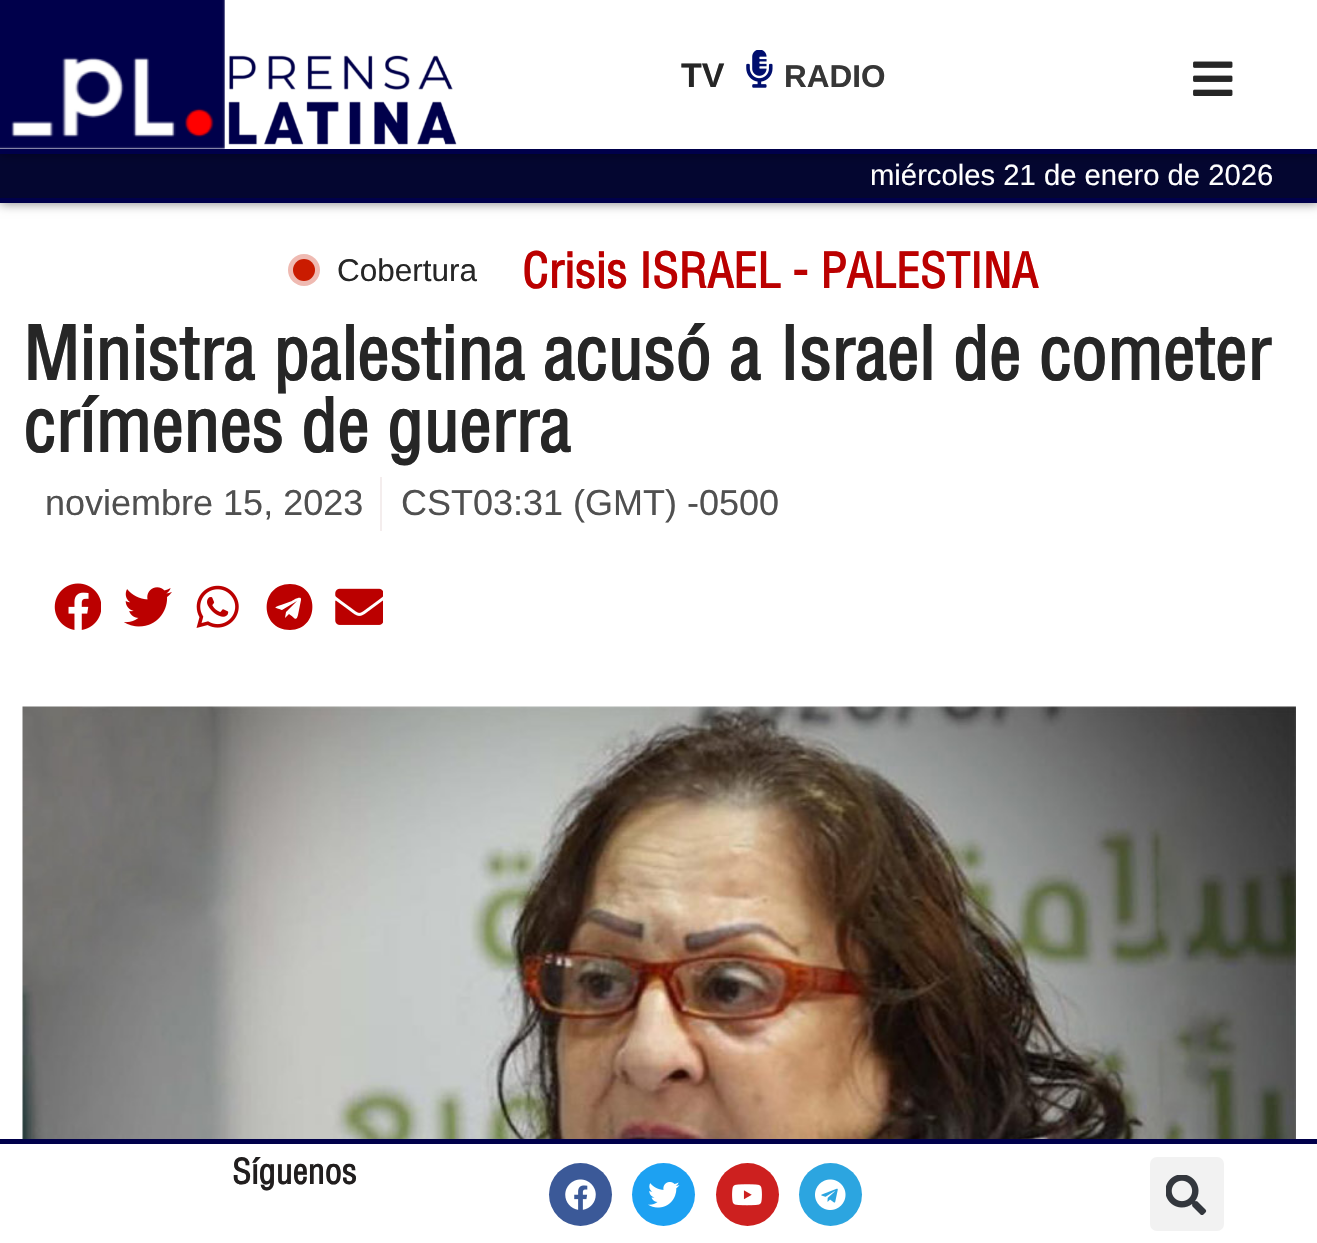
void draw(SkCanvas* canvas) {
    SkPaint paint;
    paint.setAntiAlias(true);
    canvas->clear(0xFFFFFFFF);
    paint.setColor(0x80000000);
    paint.setMaskFilter(SkMaskFilter::MakeBlur(kNormal_SkBlurStyle, 5.5f));
    canvas->drawRect(SkRect::MakeXYWH(0, 153, 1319, 50), paint);
    paint.setMaskFilter(nullptr);
    paint.setColor(0xFF040630);
    canvas->drawRect(SkRect::MakeXYWH(0, 154, 1317, 44), paint);
    paint.setColor(0x80000000);
    paint.setMaskFilter(SkMaskFilter::MakeBlur(kNormal_SkBlurStyle, 5.5f));
    canvas->drawRect(SkRect::MakeXYWH(0, 0, 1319, 153), paint);
    paint.setMaskFilter(nullptr);
    paint.setColor(0xFFFFFFFF);
    canvas->drawRect(SkRect::MakeXYWH(0, 0, 1317, 149), paint);
    paint.setColor(0xFF00004B);
    canvas->drawRect(SkRect::MakeXYWH(0, 149, 1317, 5), paint);
    canvas->drawImageRect(SkImages::DeferredFromEncodedData(SkData::MakeFromFileName("img1.png")), SkRect::MakeXYWH(0, 0, 225, 149), SkSamplingOptions());
    canvas->drawImageRect(SkImages::DeferredFromEncodedData(SkData::MakeFromFileName("img2.png")), SkRect::MakeXYWH(228, 55, 229, 90), SkSamplingOptions());
    SkFont font1(fontMgr->matchFamilyStyle("Liberation Sans", SkFontStyle::Bold()), 34);
    font1.setSubpixel(true);
    paint.setColor(0xFF262626);
    canvas->drawString("TV", 681, 87, font1, paint);
    canvas->drawImageRect(SkImages::DeferredFromEncodedData(SkData::MakeFromFileName("img3.png")), SkRect::MakeXYWH(746, 50, 27, 38), SkSamplingOptions());
    SkFont font2(fontMgr->matchFamilyStyle("Liberation Sans", SkFontStyle::Bold()), 31.5f);
    font2.setSubpixel(true);
    paint.setColor(0xFF363636);
    canvas->drawString("RADIO", 784, 87, font2, paint);
    canvas->drawImageRect(SkImages::DeferredFromEncodedData(SkData::MakeFromFileName("img4.png")), SkRect::MakeXYWH(1193, 61, 40, 35), SkSamplingOptions());
    paint.setColor(0xFF00004B);
    canvas->drawRect(SkRect::MakeXYWH(0, 198, 1317, 5), paint);
    SkFont font3(fontMgr->matchFamilyStyle("Liberation Sans", SkFontStyle::Normal()), 29.25f);
    font3.setSubpixel(true);
    paint.setColor(0xFFFFFFFF);
    canvas->drawString("miércoles 21 de enero de 2026", 870, 185, font3, paint);
    paint.setColor(0xFFCA1B00);
    canvas->drawCircle(304, 270, 11, paint);
    paint.setColor(0x4DCA1B00);
    canvas->drawCircle(304, 270, 16, paint);
    SkFont font4(fontMgr->matchFamilyStyle("Liberation Sans", SkFontStyle::Normal()), 31.5f);
    font4.setSubpixel(true);
    paint.setColor(0xFF262626);
    canvas->drawString("Cobertura", 337, 281, font4, paint);
    SkFont font5(fontMgr->matchFamilyStyle("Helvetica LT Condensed", SkFontStyle::Bold()), 47.25f);
    font5.setSubpixel(true);
    paint.setColor(0xFFBB0000);
    canvas->drawString("Crisis ISRAEL - PALESTINA", 522, 288, font5, paint);
    SkFont font6(fontMgr->matchFamilyStyle("Helvetica LT Condensed", SkFontStyle::Bold()), 72);
    font6.setSubpixel(true);
    paint.setColor(0xFF262626);
    canvas->drawString("Ministra palestina acusó a Israel de cometer", 23, 380, font6, paint);
    canvas->drawString("crímenes de guerra", 23, 452, font6, paint);
    SkFont font7(fontMgr->matchFamilyStyle("Liberation Sans", SkFontStyle::Normal()), 36);
    font7.setSubpixel(true);
    paint.setColor(0xFF505050);
    canvas->drawString("noviembre 15, 2023", 45, 515, font7, paint);
    paint.setColor(0xFFF4EDED);
    canvas->drawRect(SkRect::MakeXYWH(380, 477, 2, 54), paint);
    paint.setColor(0xFF505050);
    canvas->drawString("CST03:31 (GMT) -0500", 401, 515, font7, paint);
    canvas->drawImageRect(SkImages::DeferredFromEncodedData(SkData::MakeFromFileName("img5.png")), SkRect::MakeXYWH(54, 583, 47, 47), SkSamplingOptions());
    canvas->drawImageRect(SkImages::DeferredFromEncodedData(SkData::MakeFromFileName("img6.png")), SkRect::MakeXYWH(124, 587, 48, 40), SkSamplingOptions());
    canvas->drawImageRect(SkImages::DeferredFromEncodedData(SkData::MakeFromFileName("img7.png")), SkRect::MakeXYWH(196, 585, 43, 43), SkSamplingOptions());
    paint.setColor(0xFFBB0000);
    canvas->drawPath(SkPathBuilder().moveTo(290, 584).cubicTo(259, 584, 259, 630, 290, 630).cubicTo(320, 630, 320, 584, 290, 584).close().moveTo(301, 600).lineTo(298, 615).cubicTo(296, 622, 295, 618, 289, 614).lineTo(285, 618).lineTo(286, 612).lineTo(297, 601).lineTo(282, 610).cubicTo(277, 608, 271, 608, 281, 605).lineTo(292, 601).cubicTo(293, 600, 302, 595, 301, 600).close().detach(), paint);
    canvas->drawImageRect(SkImages::DeferredFromEncodedData(SkData::MakeFromFileName("img8.png")), SkRect::MakeXYWH(335, 588, 48, 37), SkSamplingOptions());
    canvas->drawImageRect(SkImages::DeferredFromEncodedData(SkData::MakeFromFileName("img9.png")), SkRect::MakeXYWH(22, 706, 1274, 433), SkSamplingOptions());
    paint.setColor(0xFF00004B);
    canvas->drawRect(SkRect::MakeXYWH(0, 1139, 1317, 5), paint);
    SkFont font8(fontMgr->matchFamilyStyle("Helvetica LT Condensed", SkFontStyle::Bold()), 34);
    font8.setSubpixel(true);
    paint.setColor(0xFF211E1E);
    canvas->drawString("Síguenos", 232, 1184, font8, paint);
    paint.setColor(0xFF3B5998);
    canvas->drawCircle(580.5f, 1194.5f, 31.5f, paint);
    canvas->drawImageRect(SkImages::DeferredFromEncodedData(SkData::MakeFromFileName("img10.png")), SkRect::MakeXYWH(565, 1179, 31, 31), SkSamplingOptions());
    paint.setColor(0xFF1DA1F2);
    canvas->drawCircle(663.5f, 1194.5f, 31.5f, paint);
    canvas->drawImageRect(SkImages::DeferredFromEncodedData(SkData::MakeFromFileName("img11.png")), SkRect::MakeXYWH(648, 1182, 32, 26), SkSamplingOptions());
    paint.setColor(0xFFCD201F);
    canvas->drawCircle(747.5f, 1194.5f, 31.5f, paint);
    canvas->drawImageRect(SkImages::DeferredFromEncodedData(SkData::MakeFromFileName("img12.png")), SkRect::MakeXYWH(732, 1184, 30, 22), SkSamplingOptions());
    paint.setColor(0xFF2CA5E0);
    canvas->drawCircle(830.5f, 1194.5f, 31.5f, paint);
    canvas->drawImageRect(SkImages::DeferredFromEncodedData(SkData::MakeFromFileName("img13.png")), SkRect::MakeXYWH(815, 1179, 31, 31), SkSamplingOptions());
    paint.setColor(0xFFF2F2F2);
    canvas->drawRoundRect(SkRect::MakeXYWH(1150, 1157, 74, 74), 7, 7, paint);
    canvas->drawImageRect(SkImages::DeferredFromEncodedData(SkData::MakeFromFileName("img14.png")), SkRect::MakeXYWH(1166, 1175, 41, 40), SkSamplingOptions());
}
